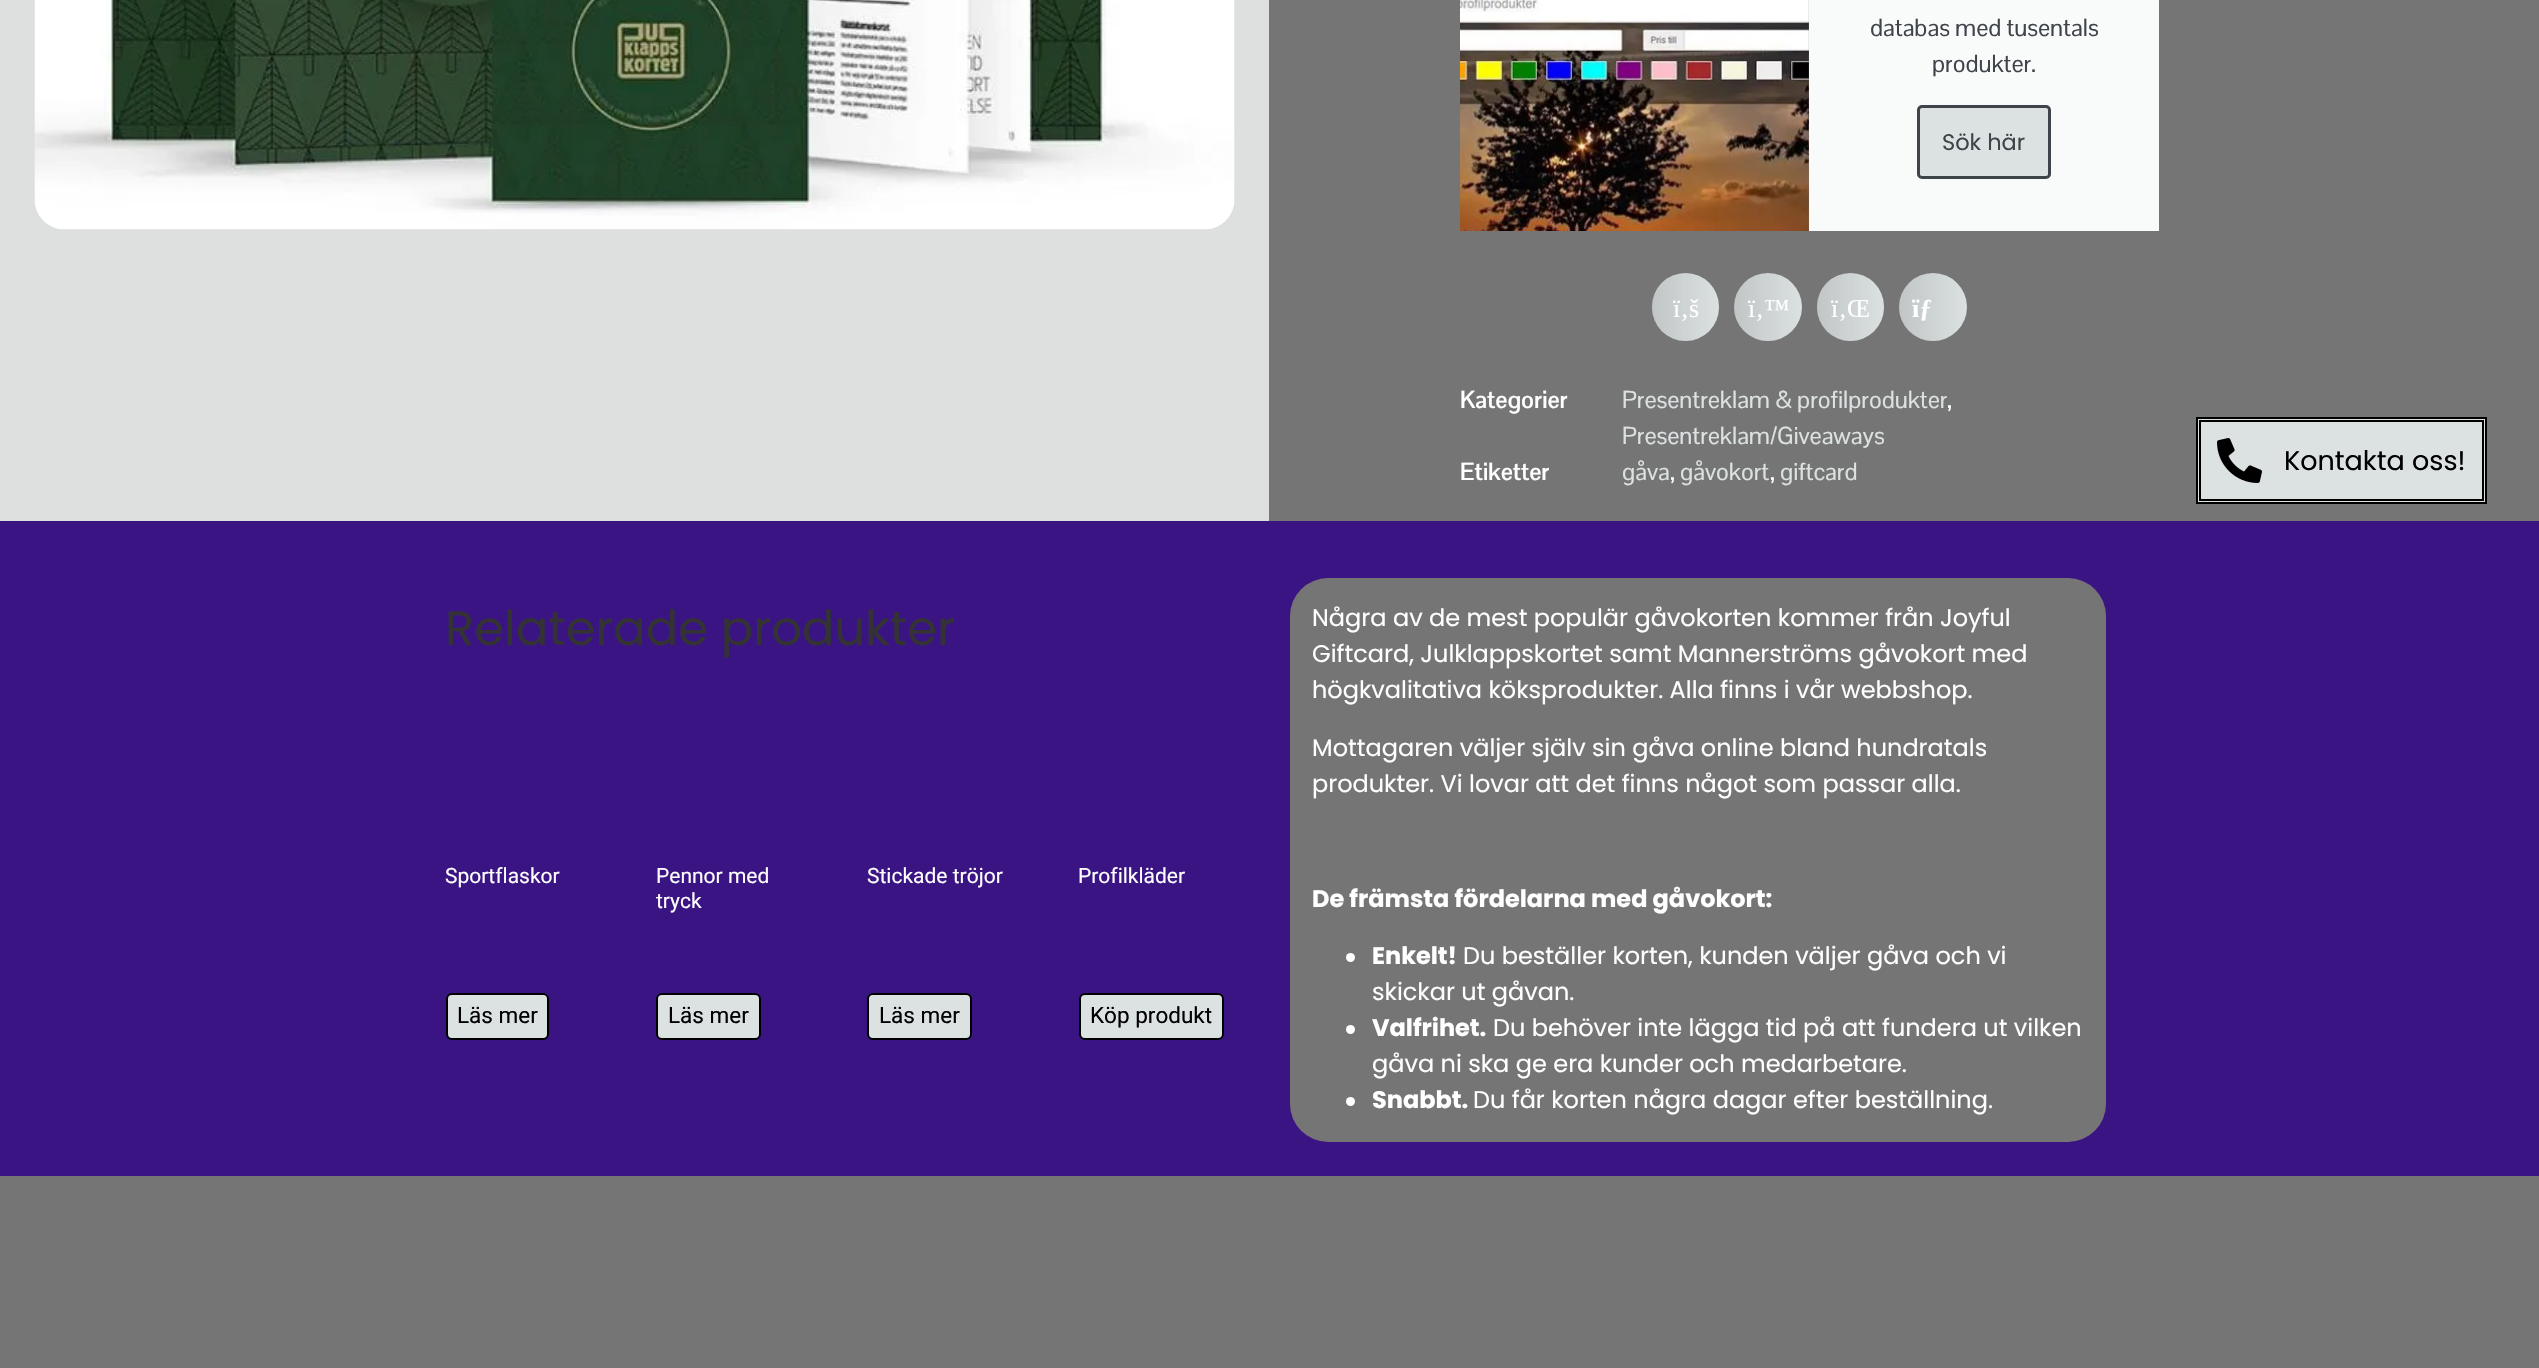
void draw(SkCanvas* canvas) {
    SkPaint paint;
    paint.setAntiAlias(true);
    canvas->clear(0xFFDEE0E0);
    canvas->drawImageRect(SkImages::DeferredFromEncodedData(SkData::MakeFromFileName("img1.png")), SkRect::MakeXYWH(34, 0, 1201, 230), SkSamplingOptions());
    paint.setColor(0xFF757575);
    canvas->drawRect(SkRect::MakeXYWH(1269, 0, 1270, 521), paint);
    canvas->drawImageRect(SkImages::DeferredFromEncodedData(SkData::MakeFromFileName("img2.png")), SkRect::MakeXYWH(1460, 0, 349, 231), SkSamplingOptions());
    paint.setColor(0xFFF9FAFA);
    canvas->drawRect(SkRect::MakeXYWH(1809, 0, 350, 231), paint);
    SkFont font1(fontMgr->matchFamilyStyle("Pontano Sans", SkFontStyle::Normal()), 24);
    font1.setSubpixel(true);
    paint.setColor(0xFF3F444B);
    canvas->drawString("databas med tusentals", 1870, 36, font1, paint);
    canvas->drawString("produkter.", 1932, 72, font1, paint);
    paint.setColor(0xFFDCE1E2);
    canvas->drawRoundRect(SkRect::MakeXYWH(1918.5f, 106.5f, 131, 71), 3.5f, 3.5f, paint);
    paint.setStyle(SkPaint::kStroke_Style);
    paint.setStrokeWidth(3);
    paint.setColor(0xFF3F444B);
    canvas->drawRoundRect(SkRect::MakeXYWH(1918.5f, 106.5f, 131, 71), 3.5f, 3.5f, paint);
    SkFont font2(fontMgr->matchFamilyStyle("Poppins", SkFontStyle::Normal()), 22.5f);
    font2.setSubpixel(true);
    paint.setStyle(SkPaint::kFill_Style);
    canvas->drawString("Sök här", 1942, 150, font2, paint);
    paint.setColor(0xFFDCE1E2);
    canvas->drawRoundRect(SkRect::MakeXYWH(1652, 273, 67, 68), 33.5f, 33.5f, paint);
    {
        const SkColor colors[] = {0x1F000000, 0x00000000};
        const float stops[] = {0, 1};
        const SkPoint ends[] = {{1652, 307}, {1719, 307}};
        paint.setShader(SkGradientShader::MakeLinear(ends, colors, stops, 2, SkTileMode::kClamp));
        paint.setAlpha(255);
    }
    canvas->drawRoundRect(SkRect::MakeXYWH(1652, 273, 67, 68), 33.5f, 33.5f, paint);
    SkFont font3(fontMgr->matchFamilyStyle("Liberation Serif", SkFontStyle::Normal()), 26);
    font3.setSubpixel(true);
    paint.setShader(nullptr);
    paint.setColor(0xFFFFFFFF);
    canvas->drawString("ï‚š", 1673, 317, font3, paint);
    paint.setColor(0xFFDCE1E2);
    canvas->drawCircle(1768, 307, 34, paint);
    {
        const SkColor colors[] = {0x1F000000, 0x00000000};
        const float stops[] = {0, 1};
        const SkPoint ends[] = {{1734, 307}, {1802, 307}};
        paint.setShader(SkGradientShader::MakeLinear(ends, colors, stops, 2, SkTileMode::kClamp));
        paint.setAlpha(255);
    }
    canvas->drawCircle(1768, 307, 34, paint);
    paint.setShader(nullptr);
    paint.setColor(0xFFFFFFFF);
    canvas->drawString("ï‚™", 1748, 317, font3, paint);
    paint.setColor(0xFFDCE1E2);
    canvas->drawRoundRect(SkRect::MakeXYWH(1817, 273, 67, 68), 33.5f, 33.5f, paint);
    {
        const SkColor colors[] = {0x1F000000, 0x00000000};
        const float stops[] = {0, 1};
        const SkPoint ends[] = {{1817, 307}, {1884, 307}};
        paint.setShader(SkGradientShader::MakeLinear(ends, colors, stops, 2, SkTileMode::kClamp));
        paint.setAlpha(255);
    }
    canvas->drawRoundRect(SkRect::MakeXYWH(1817, 273, 67, 68), 33.5f, 33.5f, paint);
    paint.setShader(nullptr);
    paint.setColor(0xFFFFFFFF);
    canvas->drawString("ï‚Œ", 1831, 317, font3, paint);
    paint.setColor(0xFFDCE1E2);
    canvas->drawCircle(1933, 307, 34, paint);
    {
        const SkColor colors[] = {0x1F000000, 0x00000000};
        const float stops[] = {0, 1};
        const SkPoint ends[] = {{1899, 307}, {1967, 307}};
        paint.setShader(SkGradientShader::MakeLinear(ends, colors, stops, 2, SkTileMode::kClamp));
        paint.setAlpha(255);
    }
    canvas->drawCircle(1933, 307, 34, paint);
    SkFont font4(fontMgr->matchFamilyStyle("Liberation Serif", SkFontStyle::Bold()), 26);
    font4.setSubpixel(true);
    paint.setShader(nullptr);
    paint.setColor(0xFFFFFFFF);
    canvas->drawString("ïƒ", 1912, 317, font4, paint);
    SkFont font5(fontMgr->matchFamilyStyle("Pontano Sans", SkFontStyle::Bold()), 24);
    font5.setSubpixel(true);
    canvas->drawString("Kategorier", 1460, 408, font5, paint);
    paint.setColor(0xFFDCE1E2);
    canvas->drawString("Presentreklam & profilprodukter", 1622, 408, font1, paint);
    paint.setColor(0xFFFFFFFF);
    canvas->drawString(",", 1947, 408, font1, paint);
    paint.setColor(0xFFDCE1E2);
    canvas->drawString("Presentreklam/Giveaways", 1622, 444, font1, paint);
    paint.setColor(0xFFFFFFFF);
    canvas->drawString("Etiketter", 1460, 480, font5, paint);
    paint.setColor(0xFFDCE1E2);
    canvas->drawString("gåva", 1622, 480, font1, paint);
    paint.setColor(0xFFFFFFFF);
    canvas->drawString(",", 1670, 480, font1, paint);
    paint.setColor(0xFFDCE1E2);
    canvas->drawString("gåvokort", 1680, 480, font1, paint);
    paint.setColor(0xFFFFFFFF);
    canvas->drawString(",", 1770, 480, font1, paint);
    paint.setColor(0xFFDCE1E2);
    canvas->drawString("giftcard", 1780, 480, font1, paint);
    canvas->drawRect(SkRect::MakeXYWH(2197, 418, 289, 85), paint);
    paint.setStyle(SkPaint::kStroke_Style);
    paint.setStrokeWidth(2);
    paint.setColor(0xFF000000);
    canvas->drawRect(SkRect::MakeXYWH(2197, 418, 289, 85), paint);
    canvas->drawRect(SkRect::MakeXYWH(2200, 421, 283, 79), paint);
    canvas->drawImageRect(SkImages::DeferredFromEncodedData(SkData::MakeFromFileName("img3.png")), SkRect::MakeXYWH(2217, 438, 45, 45), SkSamplingOptions());
    SkFont font6(fontMgr->matchFamilyStyle("Poppins", SkFontStyle::Normal()), 27);
    font6.setSubpixel(true);
    paint.setStyle(SkPaint::kFill_Style);
    canvas->drawString("Kontakta oss!", 2284, 470, font6, paint);
    paint.setColor(0xFF3A1483);
    canvas->drawRect(SkRect::MakeXYWH(0, 521, 2539, 655), paint);
    SkFont font7(fontMgr->matchFamilyStyle("Poppins", SkFontStyle::Normal()), 48);
    font7.setSubpixel(true);
    paint.setColor(0xFF333333);
    canvas->drawString("Relaterade produkter", 445, 645, font7, paint);
    SkFont font8(fontMgr->matchFamilyStyle("Roboto", SkFontStyle::Normal()), 21);
    font8.setSubpixel(true);
    paint.setColor(0xFFFFFFFF);
    canvas->drawString("Sportflaskor", 445, 883, font8, paint);
    paint.setColor(0xFFDCE1E2);
    canvas->drawRoundRect(SkRect::MakeXYWH(447, 994, 101, 45), 5, 5, paint);
    paint.setStyle(SkPaint::kStroke_Style);
    paint.setColor(0xFF000000);
    canvas->drawRoundRect(SkRect::MakeXYWH(447, 994, 101, 45), 5, 5, paint);
    SkFont font9(fontMgr->matchFamilyStyle("Roboto", SkFontStyle::Normal()), 22.5f);
    font9.setSubpixel(true);
    paint.setStyle(SkPaint::kFill_Style);
    canvas->drawString("Läs mer", 457, 1023, font9, paint);
    paint.setColor(0xFFFFFFFF);
    canvas->drawString("Pennor med", 656, 883, font8, paint);
    canvas->drawString("tryck", 656, 908, font8, paint);
    paint.setColor(0xFFDCE1E2);
    canvas->drawRoundRect(SkRect::MakeXYWH(657, 994, 103, 45), 5, 5, paint);
    paint.setStyle(SkPaint::kStroke_Style);
    paint.setColor(0xFF000000);
    canvas->drawRoundRect(SkRect::MakeXYWH(657, 994, 103, 45), 5, 5, paint);
    paint.setStyle(SkPaint::kFill_Style);
    canvas->drawString("Läs mer", 668, 1023, font9, paint);
    paint.setColor(0xFFFFFFFF);
    canvas->drawString("Stickade tröjor", 867, 883, font8, paint);
    paint.setColor(0xFFDCE1E2);
    canvas->drawRoundRect(SkRect::MakeXYWH(868, 994, 103, 45), 5, 5, paint);
    paint.setStyle(SkPaint::kStroke_Style);
    paint.setColor(0xFF000000);
    canvas->drawRoundRect(SkRect::MakeXYWH(868, 994, 103, 45), 5, 5, paint);
    paint.setStyle(SkPaint::kFill_Style);
    canvas->drawString("Läs mer", 879, 1023, font9, paint);
    paint.setColor(0xFFFFFFFF);
    canvas->drawString("Profilkläder", 1078, 883, font8, paint);
    paint.setColor(0xFFDCE1E2);
    canvas->drawRoundRect(SkRect::MakeXYWH(1080, 994, 143, 45), 5, 5, paint);
    paint.setStyle(SkPaint::kStroke_Style);
    paint.setColor(0xFF000000);
    canvas->drawRoundRect(SkRect::MakeXYWH(1080, 994, 143, 45), 5, 5, paint);
    paint.setStyle(SkPaint::kFill_Style);
    canvas->drawString("Köp produkt", 1090, 1023, font9, paint);
    paint.setColor(0xFF757575);
    canvas->drawRoundRect(SkRect::MakeXYWH(1290, 578, 816, 564), 38, 38, paint);
    SkFont font10(fontMgr->matchFamilyStyle("Poppins", SkFontStyle::Normal()), 24);
    font10.setSubpixel(true);
    paint.setColor(0xFFFFFFFF);
    canvas->drawString("Några av de mest populär gåvokorten kommer från Joyful", 1312, 626, font10, paint);
    canvas->drawString("Giftcard, Julklappskortet samt Mannerströms gåvokort med", 1312, 662, font10, paint);
    canvas->drawString("högkvalitativa köksprodukter. Alla finns i vår webbshop.", 1312, 698, font10, paint);
    canvas->drawString("Mottagaren väljer själv sin gåva online bland hundratals", 1312, 756, font10, paint);
    canvas->drawString("produkter. Vi lovar att det finns något som passar alla.", 1312, 792, font10, paint);
    SkFont font11(fontMgr->matchFamilyStyle("Poppins", SkFontStyle::Bold()), 24);
    font11.setSubpixel(true);
    canvas->drawString("De främsta fördelarna med gåvokort:", 1312, 907, font11, paint);
    canvas->drawCircle(1350.5f, 957.5f, 4.5f, paint);
    canvas->drawString("Enkelt!", 1372, 964, font11, paint);
    canvas->drawString("Du beställer korten, kunden väljer gåva och vi", 1463, 964, font10, paint);
    canvas->drawString("skickar ut gåvan.", 1372, 1000, font10, paint);
    canvas->drawCircle(1350.5f, 1029.5f, 4.5f, paint);
    canvas->drawString("Valfrihet.", 1372, 1036, font11, paint);
    canvas->drawString("Du behöver inte lägga tid på att fundera ut vilken", 1493, 1036, font10, paint);
    canvas->drawString("gåva ni ska ge era kunder och medarbetare.", 1372, 1072, font10, paint);
    canvas->drawCircle(1350.5f, 1101.5f, 4.5f, paint);
    canvas->drawString("Snabbt.", 1372, 1108, font11, paint);
    canvas->drawString("Du får korten några dagar efter beställning.", 1473, 1108, font10, paint);
    paint.setColor(0xFF757575);
    canvas->drawRect(SkRect::MakeXYWH(0, 1176, 2539, 192), paint);
}
